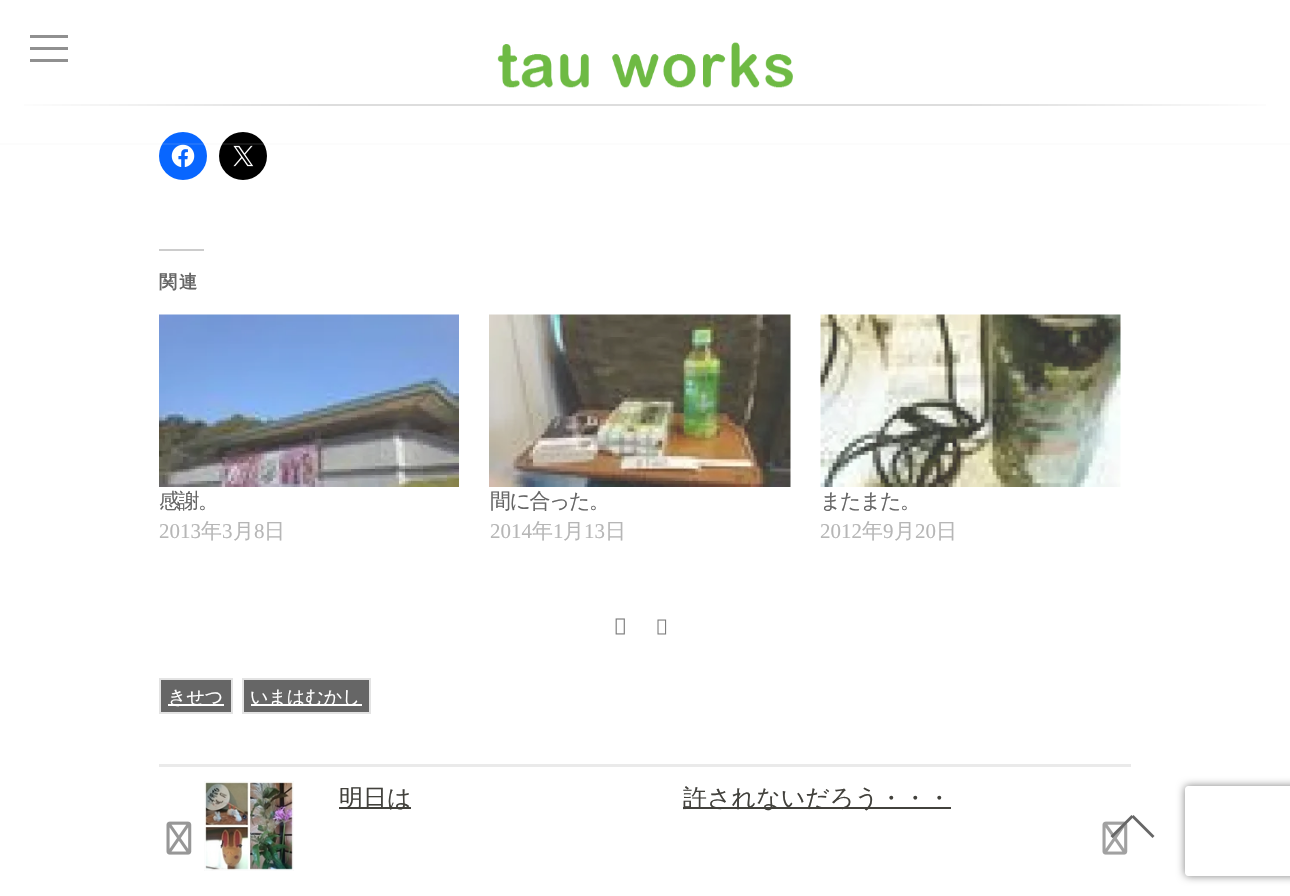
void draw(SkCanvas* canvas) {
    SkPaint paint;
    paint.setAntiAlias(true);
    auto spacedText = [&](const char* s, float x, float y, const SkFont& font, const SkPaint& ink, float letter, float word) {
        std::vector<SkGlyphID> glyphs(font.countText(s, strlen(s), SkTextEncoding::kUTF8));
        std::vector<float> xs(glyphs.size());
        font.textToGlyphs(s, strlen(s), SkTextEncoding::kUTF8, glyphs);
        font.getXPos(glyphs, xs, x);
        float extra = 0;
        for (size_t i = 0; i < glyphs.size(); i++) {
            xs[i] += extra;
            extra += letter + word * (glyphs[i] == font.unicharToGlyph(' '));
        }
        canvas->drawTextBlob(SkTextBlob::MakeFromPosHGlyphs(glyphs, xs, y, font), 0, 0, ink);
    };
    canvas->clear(0xFFFFFFFF);
    paint.setColor(0xFF909090);
    canvas->drawRect(SkRect::MakeXYWH(30, 35, 38, 3), paint);
    canvas->drawRect(SkRect::MakeXYWH(30, 47, 38, 3), paint);
    canvas->drawRect(SkRect::MakeXYWH(30, 59, 38, 3), paint);
    canvas->drawImageRect(SkImages::DeferredFromEncodedData(SkData::MakeFromFileName("img1.png")), SkRect::MakeXYWH(497, 42, 296, 46), SkSamplingOptions());
    paint.setColor(0xFF0866FF);
    canvas->drawCircle(183, 156, 24, paint);
    canvas->drawImageRect(SkImages::DeferredFromEncodedData(SkData::MakeFromFileName("img2.png")), SkRect::MakeXYWH(171, 144, 24, 23), SkSamplingOptions());
    paint.setColor(0xFF000000);
    canvas->drawCircle(243, 156, 24, paint);
    paint.setColor(0x1AE5E5E5);
    canvas->drawRect(SkRect::MakeXYWH(0, 143, 1290, 2), paint);
    {
        const SkColor colors[] = {0xFFFFFFFF, 0xFFDDDDDD, 0xFFDDDDDD, 0xFFFFFFFF};
        const float stops[] = {0, 0.25f, 0.75f, 1};
        const SkPoint ends[] = {{0, 104}, {1290, 104}};
        paint.setShader(SkGradientShader::MakeLinear(ends, colors, stops, 4, SkTileMode::kClamp));
        paint.setAlpha(255);
    }
    canvas->drawRect(SkRect::MakeXYWH(24, 104, 1242, 2), paint);
    canvas->drawImageRect(SkImages::DeferredFromEncodedData(SkData::MakeFromFileName("img3.png")), SkRect::MakeXYWH(233, 145, 21, 22), SkSamplingOptions());
    paint.setShader(nullptr);
    paint.setColor(0xFFCCCCCC);
    canvas->drawRect(SkRect::MakeXYWH(159, 249, 45, 2), paint);
    SkFont font1(fontMgr->matchFamilyStyle("WenQuanYi Zen Hei", SkFontStyle::Bold()), 18);
    font1.setSubpixel(true);
    paint.setColor(0xFF666666);
    spacedText("関連", 159, 288, font1, paint, 2, 0);
    canvas->drawImageRect(SkImages::DeferredFromEncodedData(SkData::MakeFromFileName("img4.png")), SkRect::MakeXYWH(159, 314, 300, 173), SkSamplingOptions());
    SkFont font2(fontMgr->matchFamilyStyle("WenQuanYi Zen Hei", SkFontStyle(500, SkFontStyle::kNormal_Width, SkFontStyle::kUpright_Slant)), 21);
    font2.setSubpixel(true);
    spacedText("感謝。", 159, 508, font2, paint, -1.5f, 0);
    SkFont font3(fontMgr->matchFamilyStyle("Liberation Serif", SkFontStyle::Normal()), 21);
    font3.setSubpixel(true);
    paint.setColor(0xFFB6B6B6);
    canvas->drawString("2013", 159, 538, font3, paint);
    canvas->drawString("年", 201, 538, font2, paint);
    canvas->drawString("3", 222, 538, font3, paint);
    canvas->drawString("月", 233, 538, font2, paint);
    canvas->drawString("8", 254, 538, font3, paint);
    canvas->drawString("日", 264, 538, font2, paint);
    canvas->drawImageRect(SkImages::DeferredFromEncodedData(SkData::MakeFromFileName("img5.png")), SkRect::MakeXYWH(489, 314, 302, 173), SkSamplingOptions());
    paint.setColor(0xFF666666);
    spacedText("間に合った。", 490, 508, font2, paint, -1.5f, 0);
    paint.setColor(0xFFB6B6B6);
    canvas->drawString("2014", 490, 538, font3, paint);
    canvas->drawString("年", 532, 538, font2, paint);
    canvas->drawString("1", 553, 538, font3, paint);
    canvas->drawString("月", 563, 538, font2, paint);
    canvas->drawString("13", 584, 538, font3, paint);
    canvas->drawString("日", 605, 538, font2, paint);
    canvas->drawImageRect(SkImages::DeferredFromEncodedData(SkData::MakeFromFileName("img6.png")), SkRect::MakeXYWH(820, 314, 301, 173), SkSamplingOptions());
    paint.setColor(0xFF666666);
    spacedText("またまた。", 820, 508, font2, paint, -1.5f, 0);
    paint.setColor(0xFFB6B6B6);
    canvas->drawString("2012", 820, 538, font3, paint);
    canvas->drawString("年", 862, 538, font2, paint);
    canvas->drawString("9", 883, 538, font3, paint);
    canvas->drawString("月", 894, 538, font2, paint);
    canvas->drawString("20", 915, 538, font3, paint);
    canvas->drawString("日", 936, 538, font2, paint);
    canvas->drawImageRect(SkImages::DeferredFromEncodedData(SkData::MakeFromFileName("img7.png")), SkRect::MakeXYWH(615, 618, 10, 17), SkSamplingOptions());
    canvas->drawImageRect(SkImages::DeferredFromEncodedData(SkData::MakeFromFileName("img8.png")), SkRect::MakeXYWH(657, 619, 10, 16), SkSamplingOptions());
    paint.setColor(0xFF666666);
    canvas->drawRect(SkRect::MakeXYWH(160, 679, 72, 34), paint);
    paint.setStyle(SkPaint::kStroke_Style);
    paint.setStrokeWidth(2);
    paint.setColor(0xFFE3E3E3);
    canvas->drawRect(SkRect::MakeXYWH(160, 679, 72, 34), paint);
    paint.setStyle(SkPaint::kFill_Style);
    paint.setColor(0xFFFFFFFF);
    canvas->drawRect(SkRect::MakeXYWH(168, 704, 56, 2), paint);
    SkFont font4(fontMgr->matchFamilyStyle("WenQuanYi Zen Hei", SkFontStyle(500, SkFontStyle::kNormal_Width, SkFontStyle::kUpright_Slant)), 18);
    font4.setSubpixel(true);
    canvas->drawString("きせつ", 168, 703, font4, paint);
    paint.setColor(0xFF666666);
    canvas->drawRect(SkRect::MakeXYWH(243, 679, 127, 34), paint);
    paint.setStyle(SkPaint::kStroke_Style);
    paint.setColor(0xFFE3E3E3);
    canvas->drawRect(SkRect::MakeXYWH(243, 679, 127, 34), paint);
    paint.setStyle(SkPaint::kFill_Style);
    paint.setColor(0xFFFFFFFF);
    canvas->drawRect(SkRect::MakeXYWH(251, 704, 111, 2), paint);
    canvas->drawString("いまはむかし", 250, 703, font4, paint);
    paint.setColor(0xFFEAEAEA);
    canvas->drawRect(SkRect::MakeXYWH(159, 764, 972, 3), paint);
    canvas->drawImageRect(SkImages::DeferredFromEncodedData(SkData::MakeFromFileName("img9.png")), SkRect::MakeXYWH(204, 781, 90, 90), SkSamplingOptions());
    paint.setColor(0xFF42413C);
    canvas->drawRect(SkRect::MakeXYWH(339, 807, 72, 2), paint);
    SkFont font5(fontMgr->matchFamilyStyle("WenQuanYi Zen Hei", SkFontStyle(500, SkFontStyle::kNormal_Width, SkFontStyle::kUpright_Slant)), 24);
    font5.setSubpixel(true);
    canvas->drawString("明日は", 339, 806, font5, paint);
    canvas->drawImageRect(SkImages::DeferredFromEncodedData(SkData::MakeFromFileName("img10.png")), SkRect::MakeXYWH(166, 821, 26, 34), SkSamplingOptions());
    canvas->drawRect(SkRect::MakeXYWH(683, 807, 268, 2), paint);
    canvas->drawString("許されないだろう・・・", 683, 806, font5, paint);
    canvas->drawImageRect(SkImages::DeferredFromEncodedData(SkData::MakeFromFileName("img11.png")), SkRect::MakeXYWH(1102, 821, 26, 34), SkSamplingOptions());
    paint.setColor(0xFF666666);
    canvas->drawPath(SkPathBuilder().moveTo(1133.5f, 815).lineTo(1154.5f, 836).lineTo(1152.5f, 838).lineTo(1131.5f, 817).close().detach(), paint);
    canvas->drawPath(SkPathBuilder().moveTo(1110.5f, 836).lineTo(1131.5f, 815).lineTo(1133.5f, 817).lineTo(1112.5f, 838).close().detach(), paint);
    canvas->save();
    canvas->clipPath(SkPathBuilder(SkPathFillType::kEvenOdd).moveTo(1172, 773).lineTo(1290, 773).lineTo(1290, 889).lineTo(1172, 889).close().moveTo(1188, 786).lineTo(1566, 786).cubicTo(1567.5f, 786, 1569, 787.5f, 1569, 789).lineTo(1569, 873).cubicTo(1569, 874.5f, 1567.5f, 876, 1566, 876).lineTo(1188, 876).cubicTo(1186.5f, 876, 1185, 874.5f, 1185, 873).lineTo(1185, 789).cubicTo(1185, 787.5f, 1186.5f, 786, 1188, 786).close().detach(), true);
    paint.setColor(0xFF808080);
    paint.setMaskFilter(SkMaskFilter::MakeBlur(kNormal_SkBlurStyle, 4));
    canvas->drawRoundRect(SkRect::MakeXYWH(1185, 786, 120, 90), 3, 3, paint);
    paint.setMaskFilter(nullptr);
    canvas->restore();
}
